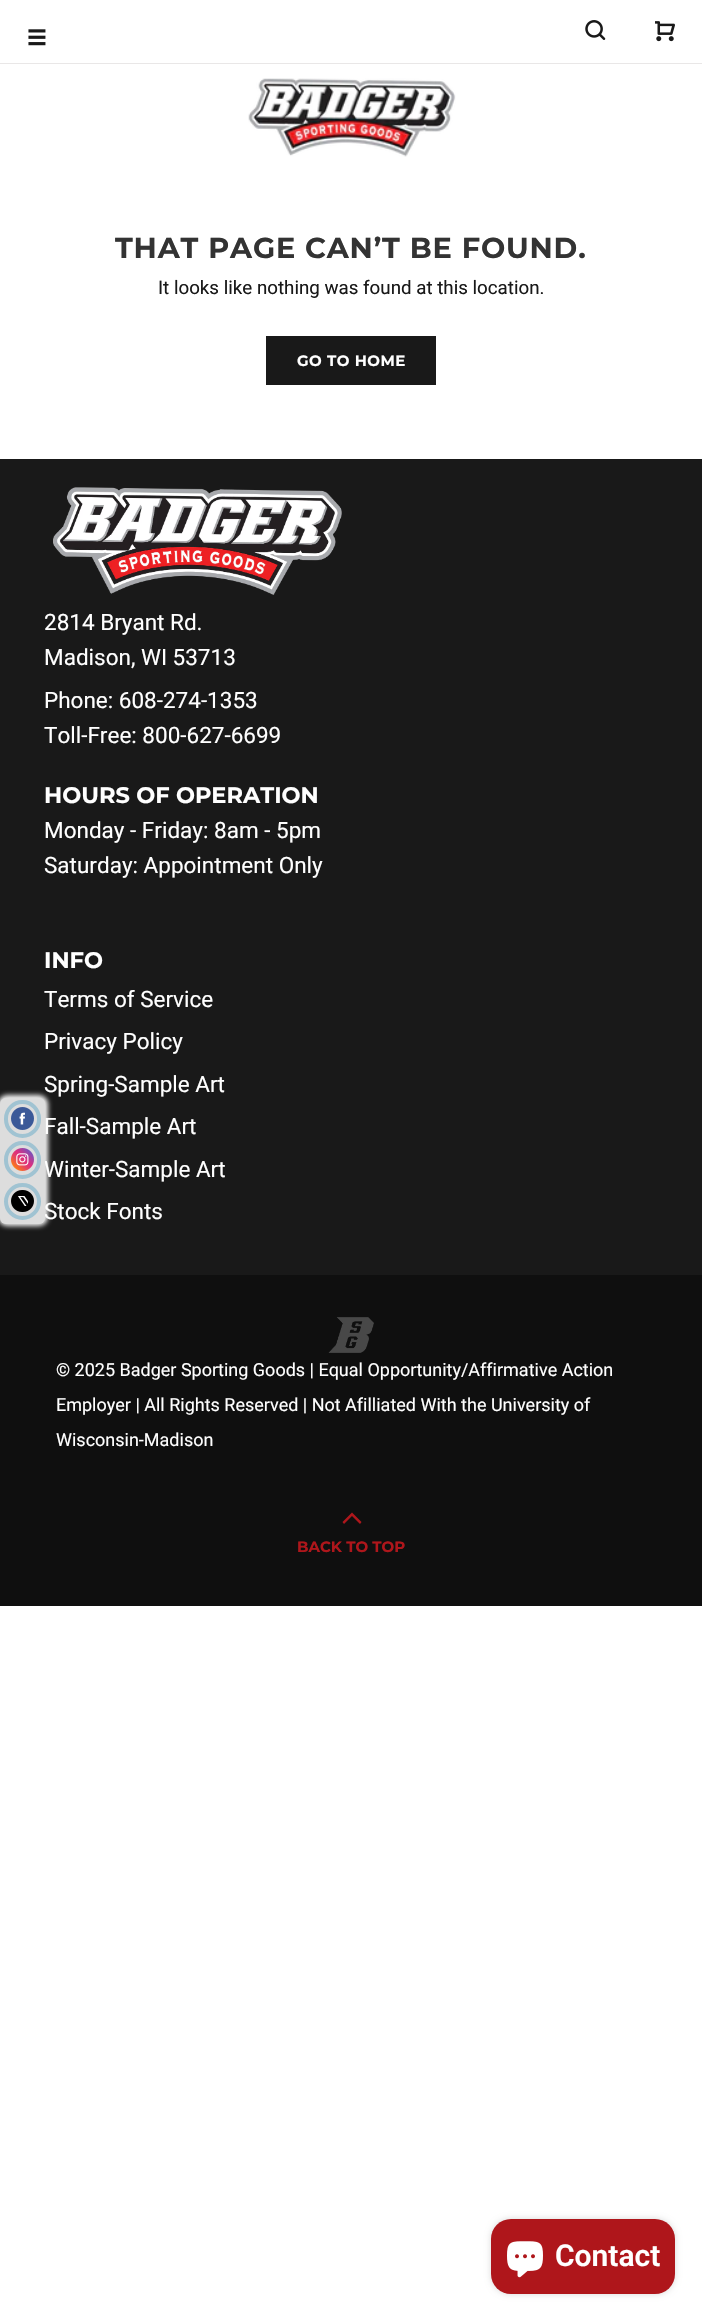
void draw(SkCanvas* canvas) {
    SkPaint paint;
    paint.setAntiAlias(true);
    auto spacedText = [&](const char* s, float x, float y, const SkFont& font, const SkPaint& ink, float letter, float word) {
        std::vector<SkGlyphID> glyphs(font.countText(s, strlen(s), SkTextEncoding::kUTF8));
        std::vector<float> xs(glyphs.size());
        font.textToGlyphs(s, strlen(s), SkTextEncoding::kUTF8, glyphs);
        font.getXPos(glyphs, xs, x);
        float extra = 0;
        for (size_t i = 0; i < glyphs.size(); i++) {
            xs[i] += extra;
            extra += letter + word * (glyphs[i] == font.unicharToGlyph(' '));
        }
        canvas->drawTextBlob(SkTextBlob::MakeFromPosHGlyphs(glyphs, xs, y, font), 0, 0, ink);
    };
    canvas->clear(0xFFFFFFFF);
    canvas->drawImageRect(SkImages::DeferredFromEncodedData(SkData::MakeFromFileName("img1.png")), SkRect::MakeXYWH(28, 29, 18, 17), SkSamplingOptions());
    canvas->drawImageRect(SkImages::DeferredFromEncodedData(SkData::MakeFromFileName("img2.png")), SkRect::MakeXYWH(585, 20, 21, 20), SkSamplingOptions());
    canvas->drawImageRect(SkImages::DeferredFromEncodedData(SkData::MakeFromFileName("img3.png")), SkRect::MakeXYWH(655, 21, 20, 21), SkSamplingOptions());
    paint.setColor(0xFFE9E7E7);
    canvas->drawRect(SkRect::MakeXYWH(0, 63, 702, 1), paint);
    canvas->drawImageRect(SkImages::DeferredFromEncodedData(SkData::MakeFromFileName("img4.png")), SkRect::MakeXYWH(248, 78, 208, 79), SkSamplingOptions());
    SkFont font1(fontMgr->matchFamilyStyle("Montserrat", SkFontStyle::Bold()), 28.75f);
    font1.setSubpixel(true);
    paint.setColor(0xFF333333);
    spacedText("THAT PAGE CAN’T BE FOUND.", 115, 258, font1, paint, 0.85f, 0);
    SkFont font2(fontMgr->matchFamilyStyle("Roboto", SkFontStyle::Normal()), 18.75f);
    font2.setSubpixel(true);
    paint.setColor(0xFF191919);
    canvas->drawString("It looks like nothing was found at this location.", 158, 294, font2, paint);
    canvas->drawRect(SkRect::MakeXYWH(266, 336, 170, 49), paint);
    SkFont font3(fontMgr->matchFamilyStyle("Montserrat", SkFontStyle::Bold()), 15);
    font3.setSubpixel(true);
    paint.setColor(0xFFFFFFFF);
    spacedText("GO TO HOME", 297, 366, font3, paint, 0.5f, 0);
    paint.setColor(0xFF191919);
    canvas->drawRect(SkRect::MakeXYWH(0, 459, 702, 816), paint);
    paint.setColor(0xFFF9F9F9);
    paint.setMaskFilter(SkMaskFilter::MakeBlur(kNormal_SkBlurStyle, 2.5f));
    canvas->drawRoundRect(SkRect::MakeXYWH(-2, 1095, 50, 131), 9, 9, paint);
    paint.setMaskFilter(nullptr);
    SkFont font4(fontMgr->matchFamilyStyle("Roboto", SkFontStyle::Normal()), 22.5f);
    font4.setSubpixel(true);
    paint.setColor(0xFFFFFFFF);
    canvas->drawString("Winter-Sample Art", 44, 1177, font4, paint);
    canvas->drawString("Stock Fonts", 44, 1219, font4, paint);
    paint.setColor(0xFFDDDDDD);
    canvas->drawRoundRect(SkRect::MakeXYWH(0, 1098, 45, 126), 6, 6, paint);
    paint.setStyle(SkPaint::kStroke_Style);
    paint.setStrokeWidth(4);
    paint.setColor(0xFFA0C3D2);
    canvas->drawRoundRect(SkRect::MakeXYWH(6, 1102, 33, 34), 16.5f, 16.5f, paint);
    canvas->drawImageRect(SkImages::DeferredFromEncodedData(SkData::MakeFromFileName("img5.png")), SkRect::MakeXYWH(11, 1107, 23, 23), SkSamplingOptions());
    canvas->drawRoundRect(SkRect::MakeXYWH(6, 1143, 33, 34), 16.5f, 16.5f, paint);
    canvas->drawImageRect(SkImages::DeferredFromEncodedData(SkData::MakeFromFileName("img6.png")), SkRect::MakeXYWH(11, 1148, 23, 23), SkSamplingOptions());
    canvas->drawCircle(22.5f, 1201.5f, 16.5f, paint);
    canvas->drawImageRect(SkImages::DeferredFromEncodedData(SkData::MakeFromFileName("img7.png")), SkRect::MakeXYWH(11, 1190, 23, 22), SkSamplingOptions());
    canvas->drawImageRect(SkImages::DeferredFromEncodedData(SkData::MakeFromFileName("img8.png")), SkRect::MakeXYWH(53, 487, 289, 108), SkSamplingOptions());
    paint.setStyle(SkPaint::kFill_Style);
    paint.setColor(0xFFFFFFFF);
    canvas->drawString("2814 Bryant Rd.", 44, 630, font4, paint);
    canvas->drawString("Madison, WI 53713", 44, 665, font4, paint);
    canvas->drawString("Phone: 608-274-1353", 44, 708, font4, paint);
    canvas->drawString("Toll-Free: 800-627-6699", 44, 743, font4, paint);
    SkFont font5(fontMgr->matchFamilyStyle("Montserrat", SkFontStyle::Bold()), 22.5f);
    font5.setSubpixel(true);
    canvas->drawString("HOURS OF OPERATION", 44, 803, font5, paint);
    canvas->drawString("Monday - Friday: 8am - 5pm", 44, 838, font4, paint);
    canvas->drawString("Saturday: Appointment Only", 44, 873, font4, paint);
    canvas->drawString("INFO", 44, 968, font5, paint);
    canvas->drawString("Terms of Service", 44, 1007, font4, paint);
    canvas->drawString("Privacy Policy", 44, 1049, font4, paint);
    canvas->drawString("Spring-Sample Art", 44, 1092, font4, paint);
    canvas->drawString("Fall-Sample Art", 44, 1134, font4, paint);
    paint.setColor(0xFF0F0F0F);
    canvas->drawRect(SkRect::MakeXYWH(0, 1275, 702, 331), paint);
    canvas->drawImageRect(SkImages::DeferredFromEncodedData(SkData::MakeFromFileName("img9.png")), SkRect::MakeXYWH(328, 1317, 46, 36), SkSamplingOptions());
    SkFont font6(fontMgr->matchFamilyStyle("Roboto", SkFontStyle::Normal()), 18);
    font6.setSubpixel(true);
    paint.setColor(0xFFFFFFFF);
    canvas->drawString("© 2025 Badger Sporting Goods | Equal Opportunity/Affirmative Action", 56, 1376, font6, paint);
    canvas->drawString("Employer | All Rights Reserved | Not Afilliated With the University of", 56, 1411, font6, paint);
    canvas->drawString("Wisconsin-Madison", 56, 1446, font6, paint);
    paint.setColor(0xFFAF161B);
    canvas->drawPath(SkPathBuilder().moveTo(360, 1524).lineTo(352, 1516).lineTo(344, 1524).lineTo(342.5f, 1522).lineTo(352, 1512.5f).lineTo(361.5f, 1522).close().detach(), paint);
    canvas->drawString("BACK TO TOP", 297, 1552, font3, paint);
    paint.setColor(0x26000000);
    paint.setMaskFilter(SkMaskFilter::MakeBlur(kNormal_SkBlurStyle, 3));
    canvas->drawRoundRect(SkRect::MakeXYWH(491, 2219, 184, 75), 20, 20, paint);
    paint.setMaskFilter(nullptr);
    paint.setColor(0xFFAF161B);
    canvas->drawRoundRect(SkRect::MakeXYWH(491, 2219, 184, 75), 20, 20, paint);
    canvas->drawImageRect(SkImages::DeferredFromEncodedData(SkData::MakeFromFileName("img10.png")), SkRect::MakeXYWH(507, 2241, 36, 37), SkSamplingOptions());
    SkFont font7(fontMgr->matchFamilyStyle("Roboto", SkFontStyle(600, SkFontStyle::kNormal_Width, SkFontStyle::kUpright_Slant)), 30);
    font7.setSubpixel(true);
    paint.setColor(0xFFFFFFFF);
    canvas->drawString("Contact", 555, 2266, font7, paint);
}
